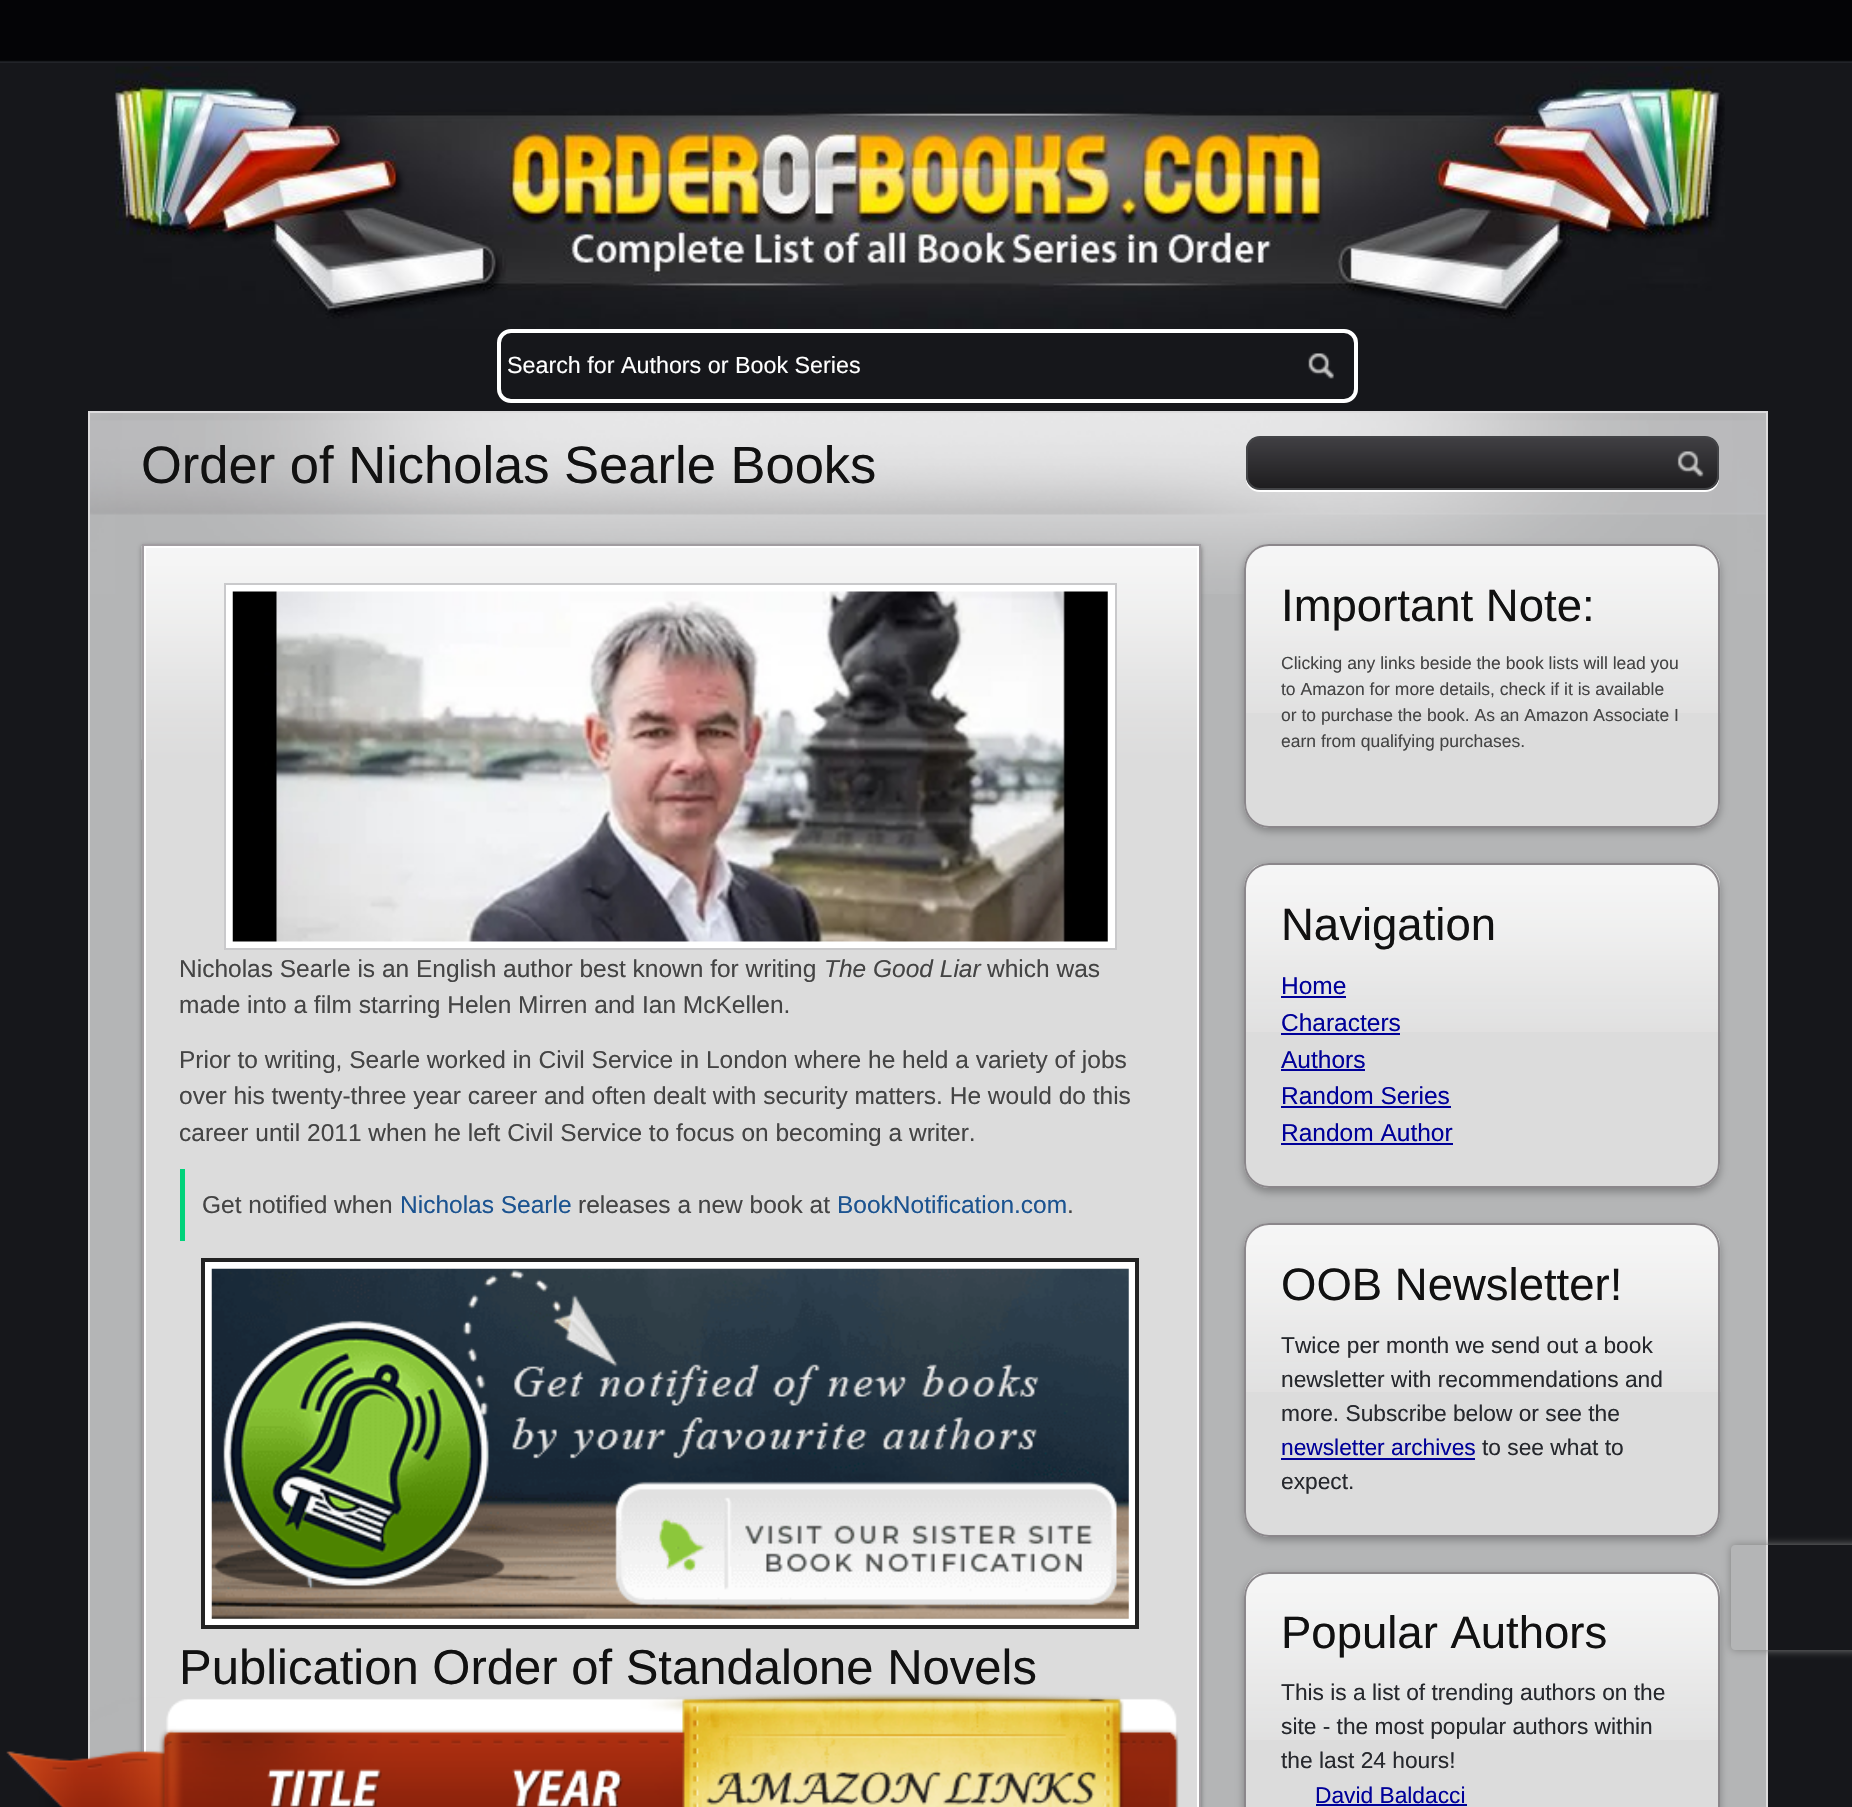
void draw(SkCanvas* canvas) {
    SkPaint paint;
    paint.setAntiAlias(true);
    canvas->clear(0xFF16171B);
    canvas->drawImageRect(SkImages::DeferredFromEncodedData(SkData::MakeFromFileName("img1.png")), SkRect::MakeXYWH(0, 0, 1852, 63), SkSamplingOptions());
    canvas->drawImageRect(SkImages::DeferredFromEncodedData(SkData::MakeFromFileName("img2.png")), SkRect::MakeXYWH(115, 66, 1610, 263), SkSamplingOptions());
    paint.setStyle(SkPaint::kStroke_Style);
    paint.setStrokeWidth(4);
    paint.setColor(0xFFFFFFFF);
    canvas->drawRoundRect(SkRect::MakeXYWH(499, 331, 857, 70), 12, 12, paint);
    SkFont font1(fontMgr->matchFamilyStyle("Liberation Sans", SkFontStyle::Normal()), 23.3f);
    font1.setSubpixel(true);
    paint.setStyle(SkPaint::kFill_Style);
    canvas->drawString("Search for Authors or Book Series", 507, 373, font1, paint);
    canvas->drawImageRect(SkImages::DeferredFromEncodedData(SkData::MakeFromFileName("img3.png")), SkRect::MakeXYWH(1308, 353, 26, 26), SkSamplingOptions());
    paint.setColor(0xFFB4B5B6);
    canvas->drawRect(SkRect::MakeXYWH(90, 413, 1676, 1394), paint);
    canvas->drawImageRect(SkImages::DeferredFromEncodedData(SkData::MakeFromFileName("img4.png")), SkRect::MakeXYWH(90, 413, 1676, 181), SkSamplingOptions());
    paint.setStyle(SkPaint::kStroke_Style);
    paint.setStrokeWidth(2);
    paint.setColor(0xFFDDDCDD);
    canvas->drawRect(SkRect::MakeXYWH(89, 412, 1678, 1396), paint);
    SkFont font2(fontMgr->matchFamilyStyle("Liberation Sans", SkFontStyle::Normal()), 52.5f);
    font2.setSubpixel(true);
    paint.setStyle(SkPaint::kFill_Style);
    paint.setColor(0xFF111111);
    canvas->drawString("Order of Nicholas Searle Books", 141, 483, font2, paint);
    paint.setColor(0xFF6F6F6F);
    paint.setMaskFilter(SkMaskFilter::MakeBlur(kNormal_SkBlurStyle, 2.5f));
    canvas->drawRect(SkRect::MakeXYWH(142, 546, 1059, 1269), paint);
    paint.setMaskFilter(nullptr);
    paint.setColor(0xFFDCDCDC);
    canvas->drawRect(SkRect::MakeXYWH(146, 759, 1051, 1048), paint);
    canvas->drawImageRect(SkImages::DeferredFromEncodedData(SkData::MakeFromFileName("img5.png")), SkRect::MakeXYWH(141, 546, 1056, 214), SkSamplingOptions());
    paint.setStyle(SkPaint::kStroke_Style);
    paint.setColor(0xFFA19DA1);
    canvas->drawRect(SkRect::MakeXYWH(143, 545, 1057, 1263), paint);
    paint.setColor(0xFFFFFFFF);
    canvas->drawRect(SkRect::MakeXYWH(145, 547, 1053, 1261), paint);
    paint.setStyle(SkPaint::kFill_Style);
    canvas->drawRect(SkRect::MakeXYWH(225, 584, 891, 365), paint);
    paint.setStyle(SkPaint::kStroke_Style);
    paint.setColor(0xFFC9C9CB);
    canvas->drawRect(SkRect::MakeXYWH(225, 584, 891, 365), paint);
    canvas->drawImageRect(SkImages::DeferredFromEncodedData(SkData::MakeFromFileName("img6.png")), SkRect::MakeXYWH(232, 591, 876, 351), SkSamplingOptions());
    SkFont font3(fontMgr->matchFamilyStyle("Liberation Sans", SkFontStyle::Normal()), 24.5f);
    font3.setSubpixel(true);
    paint.setStyle(SkPaint::kFill_Style);
    paint.setColor(0xFF444444);
    canvas->drawString("Nicholas Searle is an English author best known for writing", 179, 977, font3, paint);
    SkFont font4(fontMgr->matchFamilyStyle("Liberation Sans", SkFontStyle::Italic()), 24.5f);
    font4.setSubpixel(true);
    canvas->drawString("The Good Liar", 824, 977, font4, paint);
    canvas->drawString("which was", 987, 977, font3, paint);
    canvas->drawString("made into a film starring Helen Mirren and Ian McKellen.", 179, 1013, font3, paint);
    canvas->drawString("Prior to writing, Searle worked in Civil Service in London where he held a variety of jobs", 179, 1068, font3, paint);
    canvas->drawString("over his twenty-three year career and often dealt with security matters. He would do this", 179, 1104, font3, paint);
    canvas->drawString("career until 2011 when he left Civil Service to focus on becoming a writer.", 179, 1141, font3, paint);
    paint.setColor(0xFF00D27A);
    canvas->drawRect(SkRect::MakeXYWH(180, 1169, 5, 72), paint);
    paint.setColor(0xFF444444);
    canvas->drawString("Get notified when", 202, 1213, font3, paint);
    paint.setColor(0xFF1B5390);
    canvas->drawString("Nicholas Searle", 400, 1213, font3, paint);
    paint.setColor(0xFF444444);
    canvas->drawString("releases a new book at", 578, 1213, font3, paint);
    paint.setColor(0xFF1B5390);
    canvas->drawString("BookNotification.com", 837, 1213, font3, paint);
    paint.setColor(0xFF444444);
    canvas->drawString(".", 1067, 1213, font3, paint);
    paint.setColor(0xFFFFFFFF);
    canvas->drawRect(SkRect::MakeXYWH(203, 1260, 934, 367), paint);
    paint.setStyle(SkPaint::kStroke_Style);
    paint.setStrokeWidth(4);
    paint.setColor(0xFF222222);
    canvas->drawRect(SkRect::MakeXYWH(203, 1260, 934, 367), paint);
    canvas->drawImageRect(SkImages::DeferredFromEncodedData(SkData::MakeFromFileName("img7.png")), SkRect::MakeXYWH(211, 1268, 918, 351), SkSamplingOptions());
    SkFont font5(fontMgr->matchFamilyStyle("Liberation Sans", SkFontStyle::Normal()), 49);
    font5.setSubpixel(true);
    paint.setStyle(SkPaint::kFill_Style);
    paint.setColor(0xFF111111);
    canvas->drawString("Publication Order of Standalone Novels", 179, 1684, font5, paint);
    canvas->drawImageRect(SkImages::DeferredFromEncodedData(SkData::MakeFromFileName("img8.png")), SkRect::MakeXYWH(6, 1693, 1173, 114), SkSamplingOptions());
    paint.setColor(0xFFFFFFFF);
    canvas->drawPath(SkPathBuilder().moveTo(1246, 476).lineTo(1246, 478).cubicTo(1246, 486, 1252, 492, 1260, 492).lineTo(1705, 492).cubicTo(1713, 492, 1719, 486, 1719, 478).lineTo(1719, 452).lineTo(1718, 448).lineTo(1718, 476).cubicTo(1718, 484, 1712, 490, 1704, 490).lineTo(1260, 490).cubicTo(1252, 490, 1246, 484, 1246, 476).close().detach(), paint);
    canvas->save();
    canvas->clipPath(SkPathBuilder().moveTo(1260, 436).lineTo(1705, 436).cubicTo(1712.5f, 436, 1719, 442.5f, 1719, 450).lineTo(1719, 476).cubicTo(1719, 483.5f, 1712.5f, 490, 1705, 490).lineTo(1260, 490).cubicTo(1252.5f, 490, 1246, 483.5f, 1246, 476).lineTo(1246, 450).cubicTo(1246, 442.5f, 1252.5f, 436, 1260, 436).close().detach(), true);
    {
        const SkColor colors[] = {0xFF1E1D1F, 0xFF403F43};
        const float stops[] = {0, 1};
        const SkPoint ends[] = {{1248, 488}, {1248, 438}};
        paint.setShader(SkGradientShader::MakeLinear(ends, colors, stops, 2, SkTileMode::kClamp));
        paint.setAlpha(255);
    }
    canvas->drawRect(SkRect::MakeXYWH(1246, 438, 473, 50), paint);
    canvas->restore();
    paint.setStyle(SkPaint::kStroke_Style);
    paint.setStrokeWidth(2);
    paint.setShader(nullptr);
    paint.setColor(0xFF434447);
    canvas->drawRoundRect(SkRect::MakeXYWH(1247, 437, 471, 52), 13, 13, paint);
    canvas->drawImageRect(SkImages::DeferredFromEncodedData(SkData::MakeFromFileName("img9.png")), SkRect::MakeXYWH(1677, 451, 27, 26), SkSamplingOptions());
    paint.setStyle(SkPaint::kFill_Style);
    paint.setColor(0xFF808182);
    paint.setMaskFilter(SkMaskFilter::MakeBlur(kNormal_SkBlurStyle, 4.5f));
    canvas->drawRoundRect(SkRect::MakeXYWH(1244, 548, 476, 283), 25, 25, paint);
    paint.setMaskFilter(nullptr);
    paint.setColor(0xFFDCDCDC);
    canvas->drawRoundRect(SkRect::MakeXYWH(1244, 544, 476, 284), 25, 25, paint);
    canvas->drawImageRect(SkImages::DeferredFromEncodedData(SkData::MakeFromFileName("img10.png")), SkRect::MakeXYWH(1244, 546, 477, 167), SkSamplingOptions());
    paint.setStyle(SkPaint::kStroke_Style);
    paint.setColor(0xFF8B878B);
    canvas->drawRoundRect(SkRect::MakeXYWH(1245, 545, 474, 282), 24, 24, paint);
    SkFont font6(fontMgr->matchFamilyStyle("Liberation Sans", SkFontStyle::Normal()), 45.5f);
    font6.setSubpixel(true);
    paint.setStyle(SkPaint::kFill_Style);
    paint.setColor(0xFF111111);
    canvas->drawString("Important Note:", 1281, 621, font6, paint);
    SkFont font7(fontMgr->matchFamilyStyle("Liberation Sans", SkFontStyle::Normal()), 17.5f);
    font7.setSubpixel(true);
    paint.setColor(0xFF444444);
    canvas->drawString("Clicking any links beside the book lists will lead you", 1281, 669, font7, paint);
    canvas->drawString("to Amazon for more details, check if it is available", 1281, 695, font7, paint);
    canvas->drawString("or to purchase the book. As an Amazon Associate I", 1281, 721, font7, paint);
    canvas->drawString("earn from qualifying purchases.", 1281, 747, font7, paint);
    paint.setColor(0xFF808182);
    paint.setMaskFilter(SkMaskFilter::MakeBlur(kNormal_SkBlurStyle, 4.5f));
    canvas->drawRoundRect(SkRect::MakeXYWH(1244, 866, 476, 326), 25, 25, paint);
    paint.setMaskFilter(nullptr);
    paint.setColor(0xFFDCDCDC);
    canvas->drawRoundRect(SkRect::MakeXYWH(1244, 863, 476, 325), 25, 25, paint);
    canvas->drawImageRect(SkImages::DeferredFromEncodedData(SkData::MakeFromFileName("img11.png")), SkRect::MakeXYWH(1244, 864, 477, 168), SkSamplingOptions());
    paint.setStyle(SkPaint::kStroke_Style);
    paint.setColor(0xFF8B878B);
    canvas->drawRoundRect(SkRect::MakeXYWH(1245, 864, 474, 323), 24, 24, paint);
    paint.setStyle(SkPaint::kFill_Style);
    paint.setColor(0xFF111111);
    canvas->drawString("Navigation", 1281, 940, font6, paint);
    paint.setColor(0xFF000099);
    canvas->drawString("Home", 1281, 994, font3, paint);
    canvas->drawRect(SkRect::MakeXYWH(1281, 996, 65, 2), paint);
    canvas->drawString("Characters", 1281, 1031, font3, paint);
    canvas->drawRect(SkRect::MakeXYWH(1281, 1033, 119, 2), paint);
    canvas->drawString("Authors", 1281, 1068, font3, paint);
    canvas->drawRect(SkRect::MakeXYWH(1281, 1069, 84, 2), paint);
    canvas->drawString("Random Series", 1281, 1104, font3, paint);
    canvas->drawRect(SkRect::MakeXYWH(1281, 1106, 170, 2), paint);
    canvas->drawString("Random Author", 1281, 1141, font3, paint);
    canvas->drawRect(SkRect::MakeXYWH(1281, 1143, 172, 2), paint);
    paint.setColor(0xFF808182);
    paint.setMaskFilter(SkMaskFilter::MakeBlur(kNormal_SkBlurStyle, 4.5f));
    canvas->drawRoundRect(SkRect::MakeXYWH(1244, 1227, 476, 313), 25, 25, paint);
    paint.setMaskFilter(nullptr);
    canvas->save();
    canvas->clipPath(SkPathBuilder(SkPathFillType::kEvenOdd).moveTo(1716, 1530).lineTo(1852, 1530).lineTo(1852, 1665).lineTo(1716, 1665).close().moveTo(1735, 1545).lineTo(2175, 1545).cubicTo(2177, 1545, 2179, 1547, 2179, 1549).lineTo(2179, 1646).cubicTo(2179, 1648, 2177, 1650, 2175, 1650).lineTo(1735, 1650).cubicTo(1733, 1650, 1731, 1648, 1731, 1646).lineTo(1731, 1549).cubicTo(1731, 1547, 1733, 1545, 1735, 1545).close().detach(), true);
    paint.setColor(0xFF808080);
    paint.setMaskFilter(SkMaskFilter::MakeBlur(kNormal_SkBlurStyle, 4.5f));
    canvas->drawRoundRect(SkRect::MakeXYWH(1731, 1545, 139, 105), 4, 4, paint);
    paint.setMaskFilter(nullptr);
    canvas->restore();
    paint.setColor(0xFFDCDCDC);
    canvas->drawRoundRect(SkRect::MakeXYWH(1244, 1223, 476, 314), 25, 25, paint);
    canvas->drawImageRect(SkImages::DeferredFromEncodedData(SkData::MakeFromFileName("img12.png")), SkRect::MakeXYWH(1244, 1225, 477, 167), SkSamplingOptions());
    paint.setStyle(SkPaint::kStroke_Style);
    paint.setColor(0xFF8B878B);
    canvas->drawRoundRect(SkRect::MakeXYWH(1245, 1224, 474, 312), 24, 24, paint);
    paint.setStyle(SkPaint::kFill_Style);
    paint.setColor(0xFF111111);
    canvas->drawString("OOB Newsletter!", 1281, 1300, font6, paint);
    SkFont font8(fontMgr->matchFamilyStyle("Liberation Sans", SkFontStyle::Normal()), 22.75f);
    font8.setSubpixel(true);
    paint.setColor(0xFF26282D);
    canvas->drawString("Twice per month we send out a book", 1281, 1353, font8, paint);
    canvas->drawString("newsletter with recommendations and", 1281, 1387, font8, paint);
    canvas->drawString("more. Subscribe below or see the", 1281, 1421, font8, paint);
    paint.setColor(0xFF000099);
    canvas->drawString("newsletter archives", 1281, 1455, font8, paint);
    canvas->drawRect(SkRect::MakeXYWH(1281, 1458, 194, 2), paint);
    paint.setColor(0xFF26282D);
    canvas->drawString("to see what to", 1482, 1455, font8, paint);
    canvas->drawString("expect.", 1281, 1489, font8, paint);
    paint.setColor(0xFF808182);
    paint.setMaskFilter(SkMaskFilter::MakeBlur(kNormal_SkBlurStyle, 4.5f));
    canvas->drawRoundRect(SkRect::MakeXYWH(1244, 1575, 476, 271), 25, 25, paint);
    paint.setMaskFilter(nullptr);
    paint.setColor(0xFFDCDCDC);
    canvas->drawRoundRect(SkRect::MakeXYWH(1244, 1572, 476, 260), 25, 25, paint);
    canvas->drawImageRect(SkImages::DeferredFromEncodedData(SkData::MakeFromFileName("img13.png")), SkRect::MakeXYWH(1244, 1573, 477, 167), SkSamplingOptions());
    paint.setStyle(SkPaint::kStroke_Style);
    paint.setColor(0xFF8B878B);
    canvas->drawRoundRect(SkRect::MakeXYWH(1245, 1573, 474, 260), 24, 24, paint);
    paint.setStyle(SkPaint::kFill_Style);
    paint.setColor(0xFF111111);
    canvas->drawString("Popular Authors", 1281, 1648, font6, paint);
    paint.setColor(0xFF26282D);
    canvas->drawString("This is a list of trending authors on the", 1281, 1700, font8, paint);
    canvas->drawString("site - the most popular authors within", 1281, 1734, font8, paint);
    canvas->drawString("the last 24 hours!", 1281, 1768, font8, paint);
    paint.setColor(0xFF000099);
    canvas->drawString("David Baldacci", 1315, 1803, font8, paint);
    canvas->drawRect(SkRect::MakeXYWH(1316, 1804, 151, 2), paint);
}
